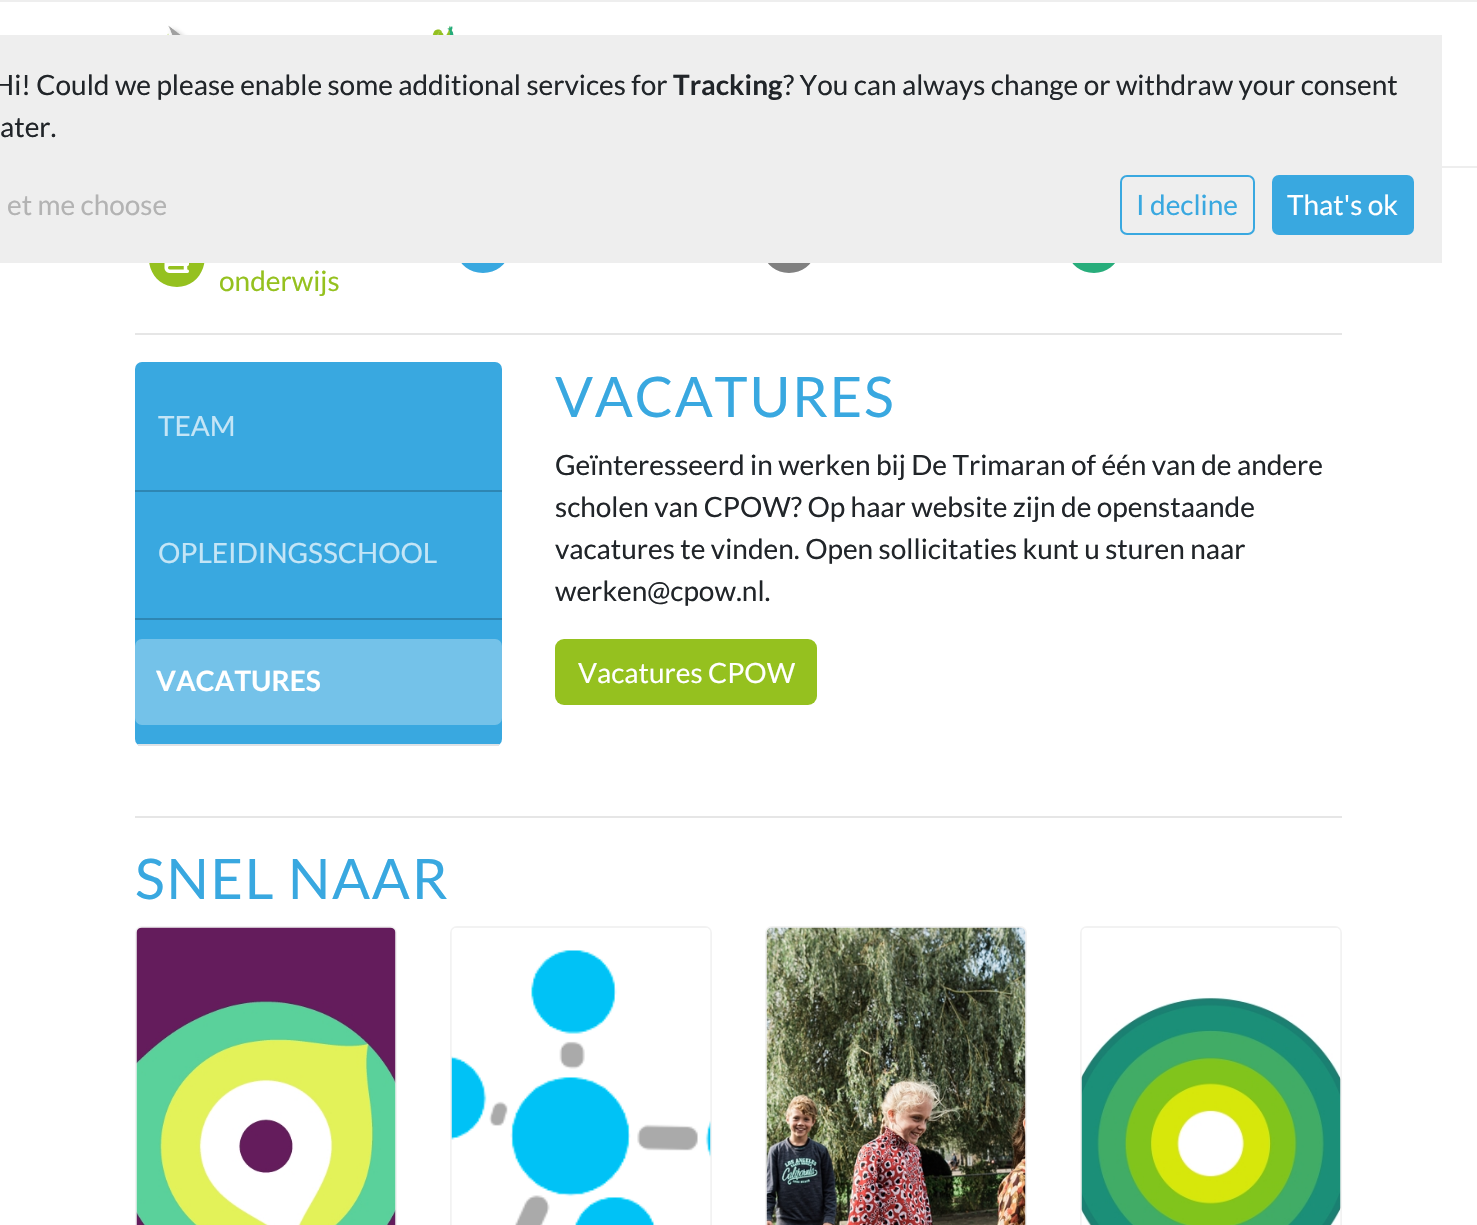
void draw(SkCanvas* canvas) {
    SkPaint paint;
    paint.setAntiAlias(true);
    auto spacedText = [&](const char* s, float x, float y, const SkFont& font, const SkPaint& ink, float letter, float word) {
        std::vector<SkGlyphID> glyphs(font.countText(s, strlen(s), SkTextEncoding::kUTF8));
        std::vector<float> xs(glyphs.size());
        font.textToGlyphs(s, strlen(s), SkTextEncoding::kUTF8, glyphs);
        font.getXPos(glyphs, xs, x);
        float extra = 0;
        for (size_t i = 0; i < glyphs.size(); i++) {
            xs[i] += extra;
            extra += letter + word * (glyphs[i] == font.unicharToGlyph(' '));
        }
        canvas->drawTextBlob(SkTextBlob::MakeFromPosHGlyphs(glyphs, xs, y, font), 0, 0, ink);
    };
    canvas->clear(0xFFFFFFFF);
    paint.setColor(0xFFEEEEEE);
    canvas->drawRect(SkRect::MakeXYWH(0, 0, 1477, 2), paint);
    canvas->drawRect(SkRect::MakeXYWH(1442, 166, 35, 2), paint);
    canvas->drawImageRect(SkImages::DeferredFromEncodedData(SkData::MakeFromFileName("img1.png")), SkRect::MakeXYWH(167, 25, 287, 10), SkSamplingOptions());
    paint.setColor(0xFF39A8E0);
    canvas->drawPath(SkPathBuilder().moveTo(483, 273).cubicTo(510, 273, 521, 239, 500, 223).cubicTo(495, 219, 489, 217, 483, 217).cubicTo(477, 217, 471, 219, 466, 223).cubicTo(445, 239, 456, 273, 483, 273).close().detach(), paint);
    paint.setColor(0xFF808080);
    canvas->drawPath(SkPathBuilder().moveTo(789, 273).cubicTo(816, 273, 827, 239, 806, 223).cubicTo(801, 219, 795, 217, 789, 217).cubicTo(783, 217, 777, 219, 772, 223).cubicTo(751, 239, 763, 273, 789, 273).close().detach(), paint);
    paint.setColor(0xFF28AD7B);
    canvas->drawPath(SkPathBuilder().moveTo(1094, 273).cubicTo(1120, 273, 1132, 239, 1111, 223).cubicTo(1106, 219, 1100, 217, 1094, 217).cubicTo(1088, 217, 1082, 219, 1077, 223).cubicTo(1056, 239, 1067, 273, 1094, 273).close().detach(), paint);
    paint.setColor(0xFF95C11F);
    canvas->drawPath(SkPathBuilder().moveTo(177, 287).cubicTo(203, 287, 215, 253, 194, 237).cubicTo(189, 233, 183, 231, 177, 231).cubicTo(171, 231, 165, 233, 160, 237).cubicTo(139, 253, 150, 287, 177, 287).close().detach(), paint);
    paint.setColor(0xFFEEEEEE);
    canvas->drawRect(SkRect::MakeXYWH(0, 35, 1442, 228), paint);
    SkFont font1(fontMgr->matchFamilyStyle("Lato", SkFontStyle::Normal()), 28);
    font1.setSubpixel(true);
    paint.setColor(0xFF212529);
    canvas->drawString("Hi! Could we please enable some additional services for", -7, 95, font1, paint);
    SkFont font2(fontMgr->matchFamilyStyle("Lato", SkFontStyle::Bold()), 28);
    font2.setSubpixel(true);
    canvas->drawString("Tracking", 673, 95, font2, paint);
    canvas->drawString("? You can always change or withdraw your consent", 783, 95, font1, paint);
    canvas->drawString("ater.", 0, 137, font1, paint);
    paint.setColor(0xFFB3B3B3);
    canvas->drawString("et me choose", 7, 215, font1, paint);
    paint.setStyle(SkPaint::kStroke_Style);
    paint.setStrokeWidth(2);
    paint.setColor(0xFF39A8E0);
    canvas->drawRoundRect(SkRect::MakeXYWH(1121, 176, 133, 58), 6, 6, paint);
    paint.setStyle(SkPaint::kFill_Style);
    canvas->drawString("I decline", 1136, 215, font1, paint);
    canvas->drawRoundRect(SkRect::MakeXYWH(1272, 175, 142, 60), 7, 7, paint);
    paint.setColor(0xFFFFFFFF);
    canvas->drawString("That's ok", 1287, 215, font1, paint);
    canvas->drawImageRect(SkImages::DeferredFromEncodedData(SkData::MakeFromFileName("img2.png")), SkRect::MakeXYWH(164, 263, 25, 10), SkSamplingOptions());
    paint.setColor(0xFF95C11F);
    canvas->drawString("onderwijs", 219, 291, font1, paint);
    paint.setColor(0xFFE6E6E6);
    canvas->drawRect(SkRect::MakeXYWH(135, 333, 1207, 2), paint);
    paint.setColor(0xFF39A8E0);
    canvas->drawRoundRect(SkRect::MakeXYWH(135, 362, 367, 384), 7, 7, paint);
    paint.setColor(0xFFDEE2E6);
    canvas->drawRect(SkRect::MakeXYWH(138, 744, 361, 2), paint);
    paint.setColor(0xFF2E86B3);
    canvas->drawRect(SkRect::MakeXYWH(135, 490, 367, 2), paint);
    paint.setColor(0xFFC4E5F6);
    canvas->drawString("TEAM", 158, 436, font1, paint);
    paint.setColor(0xFF2E86B3);
    canvas->drawRect(SkRect::MakeXYWH(135, 618, 367, 2), paint);
    paint.setColor(0xFFC4E5F6);
    canvas->drawString("OPLEIDINGSSCHOOL", 158, 563, font1, paint);
    paint.setColor(0xFF74C2E9);
    canvas->drawRoundRect(SkRect::MakeXYWH(135, 639, 367, 86), 7, 7, paint);
    paint.setColor(0xFFFFFFFF);
    canvas->drawString("VACATURES", 156, 691, font2, paint);
    SkFont font3(fontMgr->matchFamilyStyle("Lato", SkFontStyle::Normal()), 56);
    font3.setSubpixel(true);
    paint.setColor(0xFF39A8E0);
    spacedText("VACATURES", 555, 417, font3, paint, 1.75f, 0);
    paint.setColor(0xFF212529);
    canvas->drawString("Geïnteresseerd in werken bij De Trimaran of één van de andere", 555, 475, font1, paint);
    canvas->drawString("scholen van CPOW? Op haar website zijn de openstaande", 555, 517, font1, paint);
    canvas->drawString("vacatures te vinden. Open sollicitaties kunt u sturen naar", 555, 559, font1, paint);
    canvas->drawString("werken@cpow.nl.", 555, 601, font1, paint);
    paint.setColor(0xFF95C11F);
    canvas->drawRoundRect(SkRect::MakeXYWH(555, 639, 262, 66), 9, 9, paint);
    paint.setColor(0xFFFFFFFF);
    canvas->drawString("Vacatures CPOW", 578, 683, font1, paint);
    paint.setColor(0xFFE6E6E6);
    canvas->drawRect(SkRect::MakeXYWH(135, 816, 1207, 2), paint);
    paint.setColor(0xFF39A8E0);
    spacedText("SNEL NAAR", 135, 899, font3, paint, 1.75f, 0);
    paint.setStyle(SkPaint::kStroke_Style);
    paint.setColor(0xFFF2F2F2);
    canvas->drawRoundRect(SkRect::MakeXYWH(136, 927, 260, 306), 6, 6, paint);
    canvas->drawImageRect(SkImages::DeferredFromEncodedData(SkData::MakeFromFileName("img3.png")), SkRect::MakeXYWH(136, 927, 260, 298), SkSamplingOptions());
    canvas->drawRoundRect(SkRect::MakeXYWH(451, 927, 260, 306), 6, 6, paint);
    canvas->drawImageRect(SkImages::DeferredFromEncodedData(SkData::MakeFromFileName("img4.png")), SkRect::MakeXYWH(451, 928, 260, 297), SkSamplingOptions());
    canvas->drawRoundRect(SkRect::MakeXYWH(766, 927, 260, 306), 6, 6, paint);
    canvas->drawImageRect(SkImages::DeferredFromEncodedData(SkData::MakeFromFileName("img5.png")), SkRect::MakeXYWH(766, 927, 260, 298), SkSamplingOptions());
    canvas->drawRoundRect(SkRect::MakeXYWH(1081, 927, 260, 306), 6, 6, paint);
    canvas->drawImageRect(SkImages::DeferredFromEncodedData(SkData::MakeFromFileName("img6.png")), SkRect::MakeXYWH(1081, 928, 260, 297), SkSamplingOptions());
}
